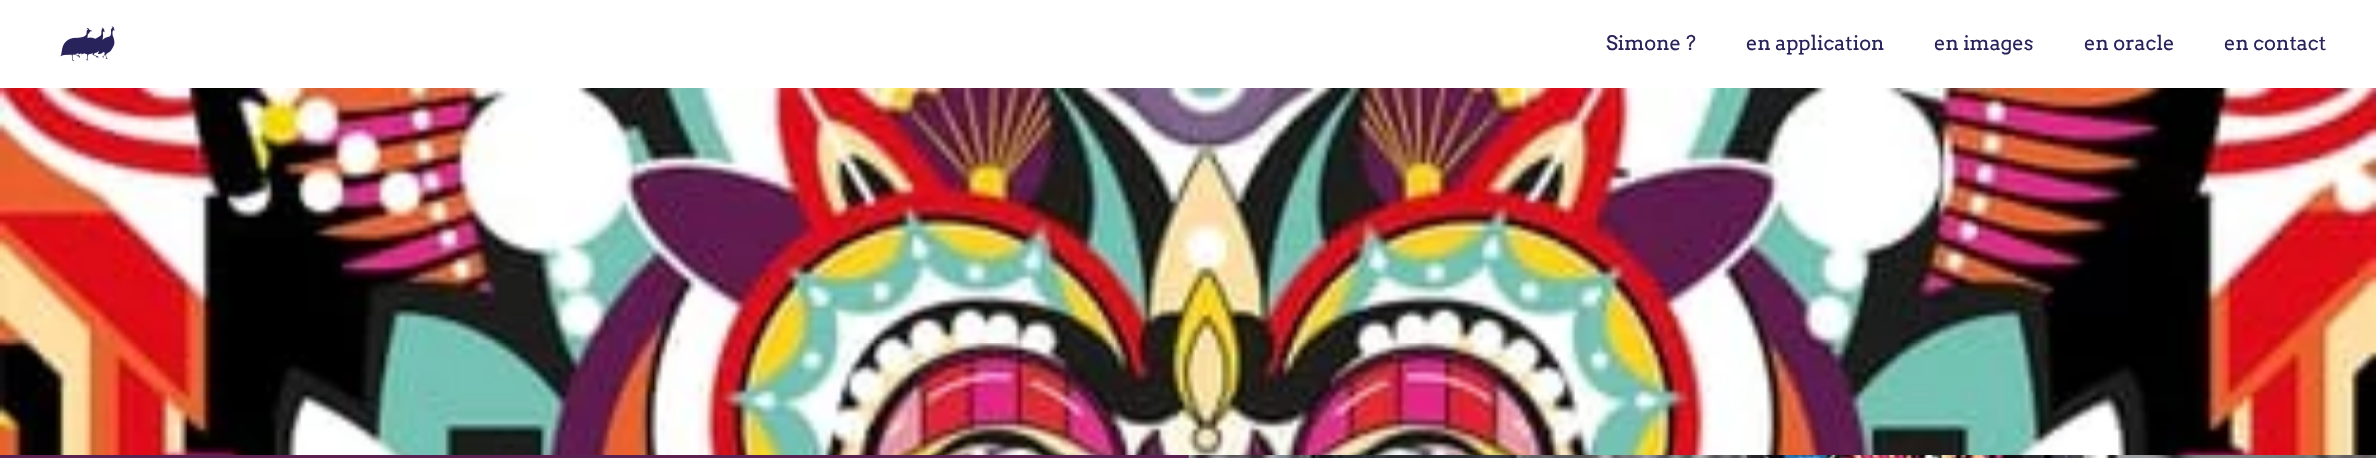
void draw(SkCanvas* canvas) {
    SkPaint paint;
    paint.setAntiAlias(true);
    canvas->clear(0xFFFFFFFF);
    canvas->drawImageRect(SkImages::DeferredFromEncodedData(SkData::MakeFromFileName("img1.png")), SkRect::MakeXYWH(60, 26, 55, 35), SkSamplingOptions());
    SkFont font1(fontMgr->matchFamilyStyle("Arvo", SkFontStyle::Normal()), 20);
    font1.setSubpixel(true);
    paint.setColor(0xFF29235C);
    canvas->drawString("Simone ?", 1606, 50, font1, paint);
    canvas->drawString("en application", 1746, 50, font1, paint);
    canvas->drawString("en images", 1934, 50, font1, paint);
    canvas->drawString("en oracle", 2084, 50, font1, paint);
    canvas->drawString("en contact", 2224, 50, font1, paint);
    canvas->drawImageRect(SkImages::DeferredFromEncodedData(SkData::MakeFromFileName("img2.png")), SkRect::MakeXYWH(0, 88, 2376, 367), SkSamplingOptions());
    paint.setColor(0xFF5B2150);
    canvas->drawRect(SkRect::MakeXYWH(0, 455, 1189, 3), paint);
    canvas->drawImageRect(SkImages::DeferredFromEncodedData(SkData::MakeFromFileName("img3.png")), SkRect::MakeXYWH(1188, 455, 1188, 3), SkSamplingOptions());
}
